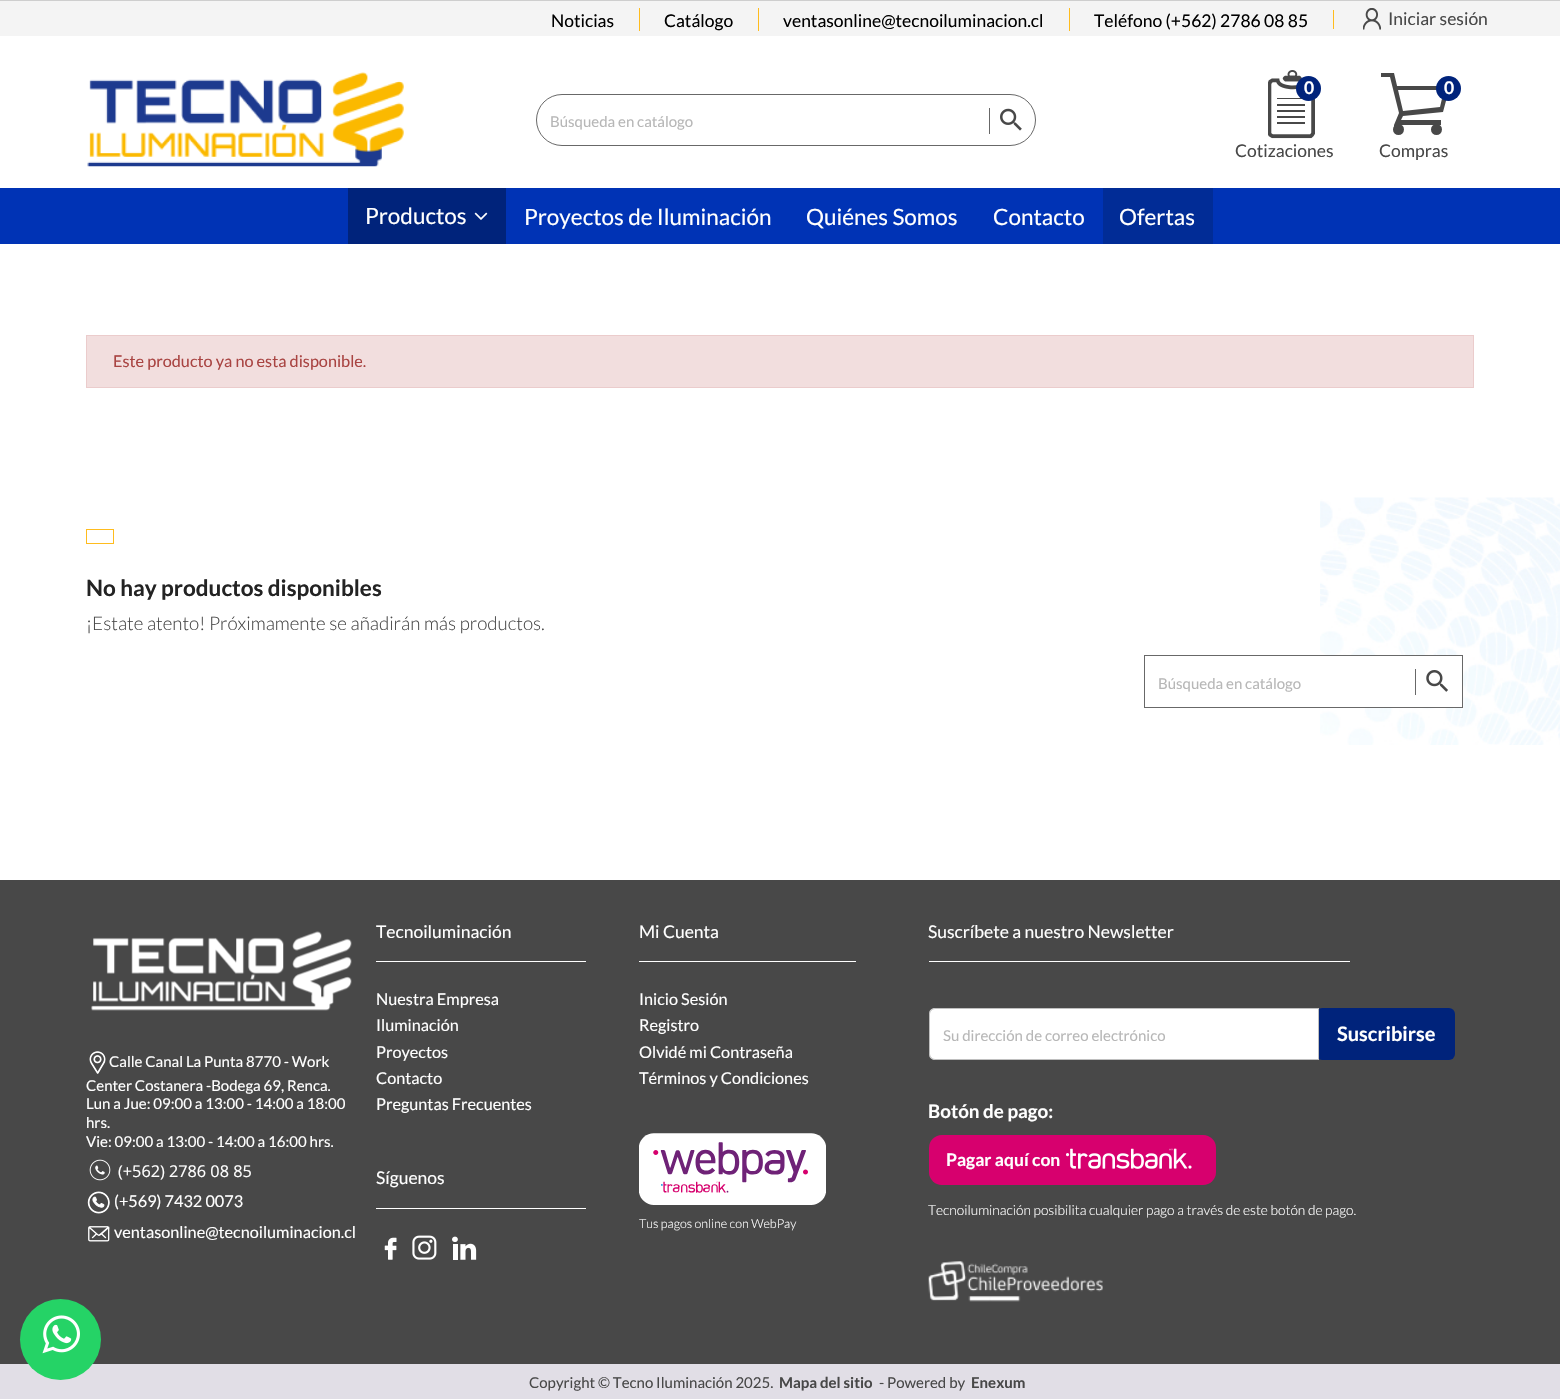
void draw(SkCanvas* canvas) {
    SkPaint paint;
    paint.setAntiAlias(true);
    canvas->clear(0xFFFFFFFF);
    paint.setColor(0xFFCECECE);
    canvas->drawRect(SkRect::MakeXYWH(0, 0, 1560, 1), paint);
    paint.setColor(0xFFF4F4F4);
    canvas->drawRect(SkRect::MakeXYWH(0, 1, 1560, 35), paint);
    SkFont font1(fontMgr->matchFamilyStyle("Lato", SkFontStyle::Normal()), 17.5f);
    font1.setSubpixel(true);
    paint.setColor(0xFF000000);
    canvas->drawString("Noticias", 551, 27, font1, paint);
    paint.setColor(0xFFFFBC1E);
    canvas->drawRect(SkRect::MakeXYWH(639, 8, 1, 23), paint);
    paint.setColor(0xFF000000);
    canvas->drawString("Catálogo", 664, 27, font1, paint);
    paint.setColor(0xFFFFBC1E);
    canvas->drawRect(SkRect::MakeXYWH(758, 8, 1, 23), paint);
    paint.setColor(0xFF000000);
    canvas->drawString("ventasonline@tecnoiluminacion.cl", 783, 27, font1, paint);
    paint.setColor(0xFFFFBC1E);
    canvas->drawRect(SkRect::MakeXYWH(1069, 8, 1, 23), paint);
    paint.setColor(0xFF000000);
    canvas->drawString("Teléfono (+562) 2786 08 85", 1094, 27, font1, paint);
    paint.setColor(0xFFFFBC1E);
    canvas->drawRect(SkRect::MakeXYWH(1333, 10, 1, 19), paint);
    canvas->drawImageRect(SkImages::DeferredFromEncodedData(SkData::MakeFromFileName("img1.png")), SkRect::MakeXYWH(1363, 8, 18, 22), SkSamplingOptions());
    paint.setColor(0xFF484848);
    canvas->drawString("Iniciar sesión", 1388, 25, font1, paint);
    canvas->drawImageRect(SkImages::DeferredFromEncodedData(SkData::MakeFromFileName("img2.png")), SkRect::MakeXYWH(87, 72, 317, 95), SkSamplingOptions());
    paint.setStyle(SkPaint::kStroke_Style);
    paint.setStrokeWidth(1);
    paint.setColor(0xFF686868);
    canvas->drawRoundRect(SkRect::MakeXYWH(536.5f, 94.5f, 499, 51), 25.5f, 25.5f, paint);
    SkFont font2(fontMgr->matchFamilyStyle("Lato", SkFontStyle::Normal()), 15);
    font2.setSubpixel(true);
    paint.setStyle(SkPaint::kFill_Style);
    paint.setColor(0xFFB7B7B7);
    canvas->drawString("Búsqueda en catálogo", 550, 127, font2, paint);
    paint.setColor(0xFF686868);
    canvas->drawRect(SkRect::MakeXYWH(989, 108, 1, 26), paint);
    canvas->drawImageRect(SkImages::DeferredFromEncodedData(SkData::MakeFromFileName("img3.png")), SkRect::MakeXYWH(1000, 108, 22, 23), SkSamplingOptions());
    canvas->drawImageRect(SkImages::DeferredFromEncodedData(SkData::MakeFromFileName("img4.png")), SkRect::MakeXYWH(1268, 70, 47, 69), SkSamplingOptions());
    paint.setColor(0xFF00237B);
    canvas->drawCircle(1308.5f, 88.5f, 12.5f, paint);
    SkFont font3(fontMgr->matchFamilyStyle("Lato", SkFontStyle::Bold()), 17.5f);
    font3.setSubpixel(true);
    paint.setColor(0xFFFFFFFF);
    canvas->drawString("0", 1304, 94, font3, paint);
    paint.setColor(0xFF484848);
    canvas->drawString("Cotizaciones", 1235, 157, font1, paint);
    canvas->drawPath(SkPathBuilder().moveTo(1381, 73).lineTo(1394, 73).lineTo(1403, 111).lineTo(1440, 107).lineTo(1444, 90).lineTo(1398, 90).lineTo(1396, 86).lineTo(1450, 86).lineTo(1443, 112).lineTo(1403, 116).lineTo(1401, 120).lineTo(1441, 120).lineTo(1441, 125).lineTo(1400, 125).lineTo(1394, 132).lineTo(1394, 125).lineTo(1399, 113).lineTo(1390, 77).lineTo(1381, 77).close().detach(), paint);
    canvas->drawCircle(1398.5f, 129.5f, 5.5f, paint);
    canvas->drawCircle(1436.5f, 129.5f, 5.5f, paint);
    paint.setColor(0xFF00237B);
    canvas->drawCircle(1448.5f, 88.5f, 12.5f, paint);
    paint.setColor(0xFFFFFFFF);
    canvas->drawString("0", 1444, 94, font3, paint);
    paint.setColor(0xFF484848);
    canvas->drawString("Compras", 1379, 157, font1, paint);
    paint.setColor(0xFF0033B5);
    canvas->drawRect(SkRect::MakeXYWH(0, 188, 1560, 56), paint);
    paint.setColor(0xFF00237B);
    canvas->drawRect(SkRect::MakeXYWH(348, 188, 158, 56), paint);
    SkFont font4(fontMgr->matchFamilyStyle("Lato", SkFontStyle::Normal()), 22.5f);
    font4.setSubpixel(true);
    paint.setColor(0xFFFFFFFF);
    canvas->drawString("Productos", 365, 224, font4, paint);
    canvas->drawImageRect(SkImages::DeferredFromEncodedData(SkData::MakeFromFileName("img5.png")), SkRect::MakeXYWH(474, 212, 14, 8), SkSamplingOptions());
    canvas->drawString("Proyectos de Iluminación", 524, 225, font4, paint);
    canvas->drawString("Quiénes Somos", 806, 225, font4, paint);
    canvas->drawString("Contacto", 993, 225, font4, paint);
    paint.setColor(0xFF012C96);
    canvas->drawRect(SkRect::MakeXYWH(1103, 188, 110, 56), paint);
    paint.setColor(0xFFFFFFFF);
    canvas->drawString("Ofertas", 1119, 225, font4, paint);
    paint.setColor(0xFFF2DEDE);
    canvas->drawRect(SkRect::MakeXYWH(86.5f, 335.5f, 1387, 52), paint);
    paint.setStyle(SkPaint::kStroke_Style);
    paint.setColor(0xFFEBCCCC);
    canvas->drawRect(SkRect::MakeXYWH(86.5f, 335.5f, 1387, 52), paint);
    SkFont font5(fontMgr->matchFamilyStyle("Lato", SkFontStyle::Normal()), 16.25f);
    font5.setSubpixel(true);
    paint.setStyle(SkPaint::kFill_Style);
    paint.setColor(0xFFA94442);
    canvas->drawString("Este producto ya no esta disponible.", 113, 367, font5, paint);
    canvas->drawImageRect(SkImages::DeferredFromEncodedData(SkData::MakeFromFileName("img6.png")), SkRect::MakeXYWH(1320, 497, 240, 248), SkSamplingOptions());
    paint.setStyle(SkPaint::kStroke_Style);
    paint.setColor(0xFFFFBC1E);
    canvas->drawRect(SkRect::MakeXYWH(86.5f, 529.5f, 27, 14), paint);
    SkFont font6(fontMgr->matchFamilyStyle("Lato", SkFontStyle::Bold()), 22.5f);
    font6.setSubpixel(true);
    paint.setStyle(SkPaint::kFill_Style);
    paint.setColor(0xFF232323);
    canvas->drawString("No hay productos disponibles", 86, 596, font6, paint);
    SkFont font7(fontMgr->matchFamilyStyle("Lato", SkFontStyle(300, SkFontStyle::kNormal_Width, SkFontStyle::kUpright_Slant)), 18.75f);
    font7.setSubpixel(true);
    paint.setColor(0xFF484848);
    canvas->drawString("¡Estate atento! Próximamente se añadirán más productos.", 86, 630, font7, paint);
    paint.setColor(0xFFFFFFFF);
    canvas->drawRect(SkRect::MakeXYWH(1320, 656, 142, 51), paint);
    paint.setStyle(SkPaint::kStroke_Style);
    paint.setColor(0xFF686868);
    canvas->drawRect(SkRect::MakeXYWH(1144.5f, 655.5f, 318, 52), paint);
    paint.setStyle(SkPaint::kFill_Style);
    paint.setColor(0xFFB7B7B7);
    canvas->drawString("Búsqueda en catálogo", 1158, 689, font2, paint);
    paint.setColor(0xFF686868);
    canvas->drawRect(SkRect::MakeXYWH(1415, 669, 1, 26), paint);
    canvas->drawImageRect(SkImages::DeferredFromEncodedData(SkData::MakeFromFileName("img7.png")), SkRect::MakeXYWH(1426, 670, 22, 22), SkSamplingOptions());
    paint.setColor(0xFF484848);
    canvas->drawRect(SkRect::MakeXYWH(0, 880, 1560, 484), paint);
    canvas->drawImageRect(SkImages::DeferredFromEncodedData(SkData::MakeFromFileName("img8.png")), SkRect::MakeXYWH(91, 931, 261, 80), SkSamplingOptions());
    canvas->drawImageRect(SkImages::DeferredFromEncodedData(SkData::MakeFromFileName("img9.png")), SkRect::MakeXYWH(89, 1051, 17, 23), SkSamplingOptions());
    paint.setColor(0xFFFFFFFF);
    canvas->drawString("Calle Canal La Punta 8770 - Work", 109, 1067, font2, paint);
    canvas->drawString("Center Costanera -Bodega 69, Renca.", 86, 1091, font2, paint);
    canvas->drawString("Lun a Jue: 09:00 a 13:00 - 14:00 a 18:00", 86, 1109, font2, paint);
    canvas->drawString("hrs.", 86, 1128, font2, paint);
    canvas->drawString("Vie: 09:00 a 13:00 - 14:00 a 16:00 hrs.", 86, 1147, font2, paint);
    canvas->drawImageRect(SkImages::DeferredFromEncodedData(SkData::MakeFromFileName("img10.png")), SkRect::MakeXYWH(89, 1159, 22, 22), SkSamplingOptions());
    SkFont font8(fontMgr->matchFamilyStyle("Open Sans", SkFontStyle::Normal()), 16.25f);
    font8.setSubpixel(true);
    canvas->drawString("(+562) 2786 08 85", 118, 1177, font8, paint);
    canvas->drawImageRect(SkImages::DeferredFromEncodedData(SkData::MakeFromFileName("img11.png")), SkRect::MakeXYWH(87, 1191, 23, 23), SkSamplingOptions());
    canvas->drawString("(+569) 7432 0073", 114, 1207, font5, paint);
    canvas->drawImageRect(SkImages::DeferredFromEncodedData(SkData::MakeFromFileName("img12.png")), SkRect::MakeXYWH(88, 1226, 22, 16), SkSamplingOptions());
    canvas->drawString("ventasonline@tecnoiluminacion.cl", 114, 1238, font5, paint);
    canvas->drawRect(SkRect::MakeXYWH(376, 961, 210, 1), paint);
    canvas->drawString("Tecnoiluminación", 376, 938, font1, paint);
    canvas->drawString("Nuestra Empresa", 376, 1005, font5, paint);
    canvas->drawString("Iluminación", 376, 1031, font5, paint);
    canvas->drawString("Proyectos", 376, 1058, font5, paint);
    canvas->drawString("Contacto", 376, 1084, font5, paint);
    canvas->drawString("Preguntas Frecuentes", 376, 1110, font5, paint);
    canvas->drawRect(SkRect::MakeXYWH(376, 1208, 210, 1), paint);
    canvas->drawString("Síguenos", 376, 1184, font1, paint);
    canvas->drawImageRect(SkImages::DeferredFromEncodedData(SkData::MakeFromFileName("img13.png")), SkRect::MakeXYWH(384, 1237, 13, 23), SkSamplingOptions());
    canvas->drawImageRect(SkImages::DeferredFromEncodedData(SkData::MakeFromFileName("img14.png")), SkRect::MakeXYWH(412, 1235, 25, 25), SkSamplingOptions());
    canvas->drawImageRect(SkImages::DeferredFromEncodedData(SkData::MakeFromFileName("img15.png")), SkRect::MakeXYWH(452, 1236, 25, 24), SkSamplingOptions());
    canvas->drawRect(SkRect::MakeXYWH(639, 961, 217, 1), paint);
    canvas->drawString("Mi Cuenta", 639, 938, font1, paint);
    canvas->drawString("Inicio Sesión", 639, 1005, font5, paint);
    canvas->drawString("Registro", 639, 1031, font5, paint);
    canvas->drawString("Olvidé mi Contraseña", 639, 1058, font5, paint);
    canvas->drawString("Términos y Condiciones", 639, 1084, font5, paint);
    canvas->drawImageRect(SkImages::DeferredFromEncodedData(SkData::MakeFromFileName("img16.png")), SkRect::MakeXYWH(639, 1133, 187, 72), SkSamplingOptions());
    SkFont font9(fontMgr->matchFamilyStyle("Lato", SkFontStyle(300, SkFontStyle::kNormal_Width, SkFontStyle::kUpright_Slant)), 12.5f);
    font9.setSubpixel(true);
    canvas->drawString("Tus pagos online con WebPay", 639, 1228, font9, paint);
    canvas->drawRect(SkRect::MakeXYWH(929, 961, 421, 1), paint);
    canvas->drawString("Suscríbete a nuestro Newsletter", 928, 938, font1, paint);
    paint.setColor(0xFF00237B);
    canvas->drawRoundRect(SkRect::MakeXYWH(1316, 1008, 139, 52), 6, 6, paint);
    paint.setColor(0xFFFFFFFF);
    canvas->drawPath(SkPathBuilder().moveTo(935, 1008).lineTo(1319, 1008).lineTo(1319, 1060).lineTo(935, 1060).cubicTo(931.5f, 1060, 929, 1057.5f, 929, 1054).lineTo(929, 1014).cubicTo(929, 1010.5f, 931.5f, 1008, 935, 1008).close().detach(), paint);
    paint.setStyle(SkPaint::kStroke_Style);
    paint.setColor(0x40000000);
    canvas->drawPath(SkPathBuilder().moveTo(935, 1008.5f).lineTo(1318.5f, 1008.5f).lineTo(1318.5f, 1059.5f).lineTo(935, 1059.5f).cubicTo(932, 1059.5f, 929.5f, 1057, 929.5f, 1054).lineTo(929.5f, 1014).cubicTo(929.5f, 1011, 932, 1008.5f, 935, 1008.5f).close().detach(), paint);
    paint.setStyle(SkPaint::kFill_Style);
    paint.setColor(0xFFB7B7B7);
    canvas->drawString("Su dirección de correo electrónico", 943, 1041, font2, paint);
    SkFont font10(fontMgr->matchFamilyStyle("Lato", SkFontStyle::Bold()), 20);
    font10.setSubpixel(true);
    paint.setColor(0xFFFFFFFF);
    canvas->drawString("Suscribirse", 1337, 1041, font10, paint);
    SkFont font11(fontMgr->matchFamilyStyle("Lato", SkFontStyle::Bold()), 18.75f);
    font11.setSubpixel(true);
    canvas->drawString("Botón de pago:", 928, 1118, font11, paint);
    paint.setColor(0xFFD7006E);
    canvas->drawRoundRect(SkRect::MakeXYWH(929, 1135, 287, 50), 13, 13, paint);
    canvas->drawImageRect(SkImages::DeferredFromEncodedData(SkData::MakeFromFileName("img17.png")), SkRect::MakeXYWH(1066, 1148, 126, 21), SkSamplingOptions());
    paint.setColor(0xFFFFFFFF);
    canvas->drawString("Pagar aquí con", 946, 1166, font3, paint);
    SkFont font12(fontMgr->matchFamilyStyle("Lato", SkFontStyle(300, SkFontStyle::kNormal_Width, SkFontStyle::kUpright_Slant)), 13.75f);
    font12.setSubpixel(true);
    canvas->drawString("Tecnoiluminación posibilita cualquier pago a través de este botón de pago.", 928, 1215, font12, paint);
    canvas->drawImageRect(SkImages::DeferredFromEncodedData(SkData::MakeFromFileName("img18.png")), SkRect::MakeXYWH(928, 1261, 175, 41), SkSamplingOptions());
    paint.setColor(0xFFE1DEE6);
    canvas->drawRect(SkRect::MakeXYWH(0, 1364, 1560, 35), paint);
    paint.setColor(0xFF25D366);
    canvas->drawCircle(60.5f, 1339.5f, 40.5f, paint);
    canvas->drawImageRect(SkImages::DeferredFromEncodedData(SkData::MakeFromFileName("img19.png")), SkRect::MakeXYWH(42, 1315, 38, 39), SkSamplingOptions());
    paint.setColor(0xFF484848);
    canvas->drawString("Copyright © Tecno Iluminación 2025.", 529, 1388, font2, paint);
    SkFont font13(fontMgr->matchFamilyStyle("Lato", SkFontStyle::Bold()), 15);
    font13.setSubpixel(true);
    canvas->drawString("Mapa del sitio", 779, 1388, font13, paint);
    canvas->drawString("- Powered by", 879, 1388, font2, paint);
    canvas->drawString("Enexum", 971, 1388, font13, paint);
}
